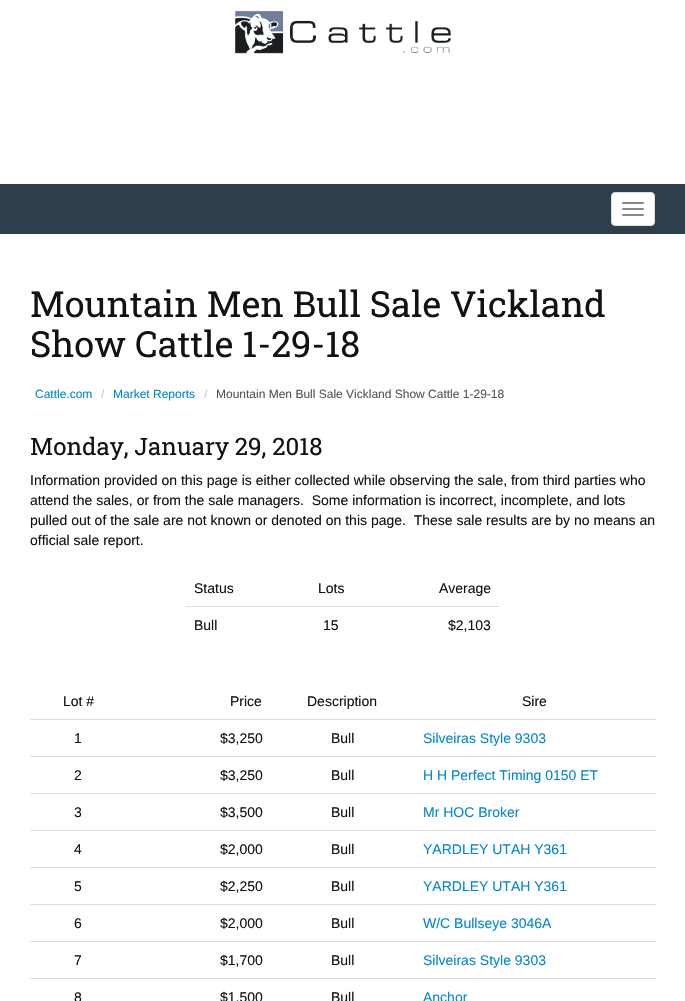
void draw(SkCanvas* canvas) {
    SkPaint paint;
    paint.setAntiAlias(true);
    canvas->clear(0xFFFFFFFF);
    canvas->drawImageRect(SkImages::DeferredFromEncodedData(SkData::MakeFromFileName("img1.png")), SkRect::MakeXYWH(235, 10, 216, 44), SkSamplingOptions());
    paint.setColor(0xFF2D3F4B);
    canvas->drawRect(SkRect::MakeXYWH(0, 184, 685, 50), paint);
    paint.setColor(0xFFFFFFFF);
    canvas->drawRoundRect(SkRect::MakeXYWH(611.5f, 192.5f, 43, 33), 3.5f, 3.5f, paint);
    paint.setStyle(SkPaint::kStroke_Style);
    paint.setStrokeWidth(1);
    paint.setColor(0xFFDDDDDD);
    canvas->drawRoundRect(SkRect::MakeXYWH(611.5f, 192.5f, 43, 33), 3.5f, 3.5f, paint);
    paint.setStyle(SkPaint::kFill_Style);
    paint.setColor(0xFF888888);
    canvas->drawRoundRect(SkRect::MakeXYWH(622, 202, 22, 2), 1, 1, paint);
    canvas->drawRoundRect(SkRect::MakeXYWH(622, 208, 22, 2), 1, 1, paint);
    canvas->drawRoundRect(SkRect::MakeXYWH(622, 214, 22, 2), 1, 1, paint);
    SkFont font1(fontMgr->matchFamilyStyle("Roboto Slab", SkFontStyle::Normal()), 36);
    font1.setSubpixel(true);
    paint.setColor(0xFF121212);
    canvas->drawString("Mountain Men Bull Sale Vickland", 30, 317, font1, paint);
    canvas->drawString("Show Cattle 1-29-18", 30, 357, font1, paint);
    SkFont font2(fontMgr->matchFamilyStyle("Liberation Sans", SkFontStyle::Normal()), 12);
    font2.setSubpixel(true);
    paint.setColor(0xFF0288D1);
    canvas->drawString("Cattle.com", 35, 398, font2, paint);
    paint.setColor(0xFFCCCCCC);
    canvas->drawString("/", 101, 398, font2, paint);
    paint.setColor(0xFF0288D1);
    canvas->drawString("Market Reports", 113, 398, font2, paint);
    paint.setColor(0xFFCCCCCC);
    canvas->drawString("/", 204, 398, font2, paint);
    paint.setColor(0xFF555555);
    canvas->drawString("Mountain Men Bull Sale Vickland Show Cattle 1-29-18", 216, 398, font2, paint);
    SkFont font3(fontMgr->matchFamilyStyle("Roboto Slab", SkFontStyle::Normal()), 24);
    font3.setSubpixel(true);
    paint.setColor(0xFF121212);
    canvas->drawString("Monday, January 29, 2018", 30, 455, font3, paint);
    SkFont font4(fontMgr->matchFamilyStyle("Liberation Sans", SkFontStyle::Normal()), 14);
    font4.setSubpixel(true);
    canvas->drawString("Information provided on this page is either collected while observing the sale, from third parties who", 30, 485, font4, paint);
    canvas->drawString("attend the sales, or from the sale managers.  Some information is incorrect, incomplete, and lots", 30, 505, font4, paint);
    canvas->drawString("pulled out of the sale are not known or denoted on this page.  These sale results are by no means an", 30, 525, font4, paint);
    canvas->drawString("official sale report.", 30, 545, font4, paint);
    canvas->drawString("Status", 194, 593, font4, paint);
    canvas->drawString("Lots", 318, 593, font4, paint);
    canvas->drawString("Average", 439, 593, font4, paint);
    canvas->drawString("Bull", 194, 630, font4, paint);
    canvas->drawString("15", 323, 630, font4, paint);
    paint.setColor(0xFFDDDDDD);
    canvas->drawRect(SkRect::MakeXYWH(186, 606, 313, 1), paint);
    paint.setColor(0xFF121212);
    canvas->drawString("$2,103", 448, 630, font4, paint);
    canvas->drawString("Lot #", 63, 706, font4, paint);
    canvas->drawString("Price", 230, 706, font4, paint);
    canvas->drawString("Description", 307, 706, font4, paint);
    canvas->drawString("Sire", 522, 706, font4, paint);
    canvas->drawString("1", 74, 743, font4, paint);
    canvas->drawString("$3,250", 220, 743, font4, paint);
    canvas->drawString("Bull", 331, 743, font4, paint);
    paint.setColor(0xFFDDDDDD);
    canvas->drawRect(SkRect::MakeXYWH(30, 719, 626, 1), paint);
    paint.setColor(0xFF0288D1);
    canvas->drawString("Silveiras Style 9303", 423, 743, font4, paint);
    paint.setColor(0xFF121212);
    canvas->drawString("2", 74, 780, font4, paint);
    canvas->drawString("$3,250", 220, 780, font4, paint);
    canvas->drawString("Bull", 331, 780, font4, paint);
    paint.setColor(0xFFDDDDDD);
    canvas->drawRect(SkRect::MakeXYWH(30, 756, 626, 1), paint);
    paint.setColor(0xFF0288D1);
    canvas->drawString("H H Perfect Timing 0150 ET", 423, 780, font4, paint);
    paint.setColor(0xFF121212);
    canvas->drawString("3", 74, 817, font4, paint);
    canvas->drawString("$3,500", 220, 817, font4, paint);
    canvas->drawString("Bull", 331, 817, font4, paint);
    paint.setColor(0xFFDDDDDD);
    canvas->drawRect(SkRect::MakeXYWH(30, 793, 626, 1), paint);
    paint.setColor(0xFF0288D1);
    canvas->drawString("Mr HOC Broker", 423, 817, font4, paint);
    paint.setColor(0xFF121212);
    canvas->drawString("4", 74, 854, font4, paint);
    canvas->drawString("$2,000", 220, 854, font4, paint);
    canvas->drawString("Bull", 331, 854, font4, paint);
    paint.setColor(0xFFDDDDDD);
    canvas->drawRect(SkRect::MakeXYWH(30, 830, 626, 1), paint);
    paint.setColor(0xFF0288D1);
    canvas->drawString("YARDLEY UTAH Y361", 423, 854, font4, paint);
    paint.setColor(0xFF121212);
    canvas->drawString("5", 74, 891, font4, paint);
    canvas->drawString("$2,250", 220, 891, font4, paint);
    canvas->drawString("Bull", 331, 891, font4, paint);
    paint.setColor(0xFFDDDDDD);
    canvas->drawRect(SkRect::MakeXYWH(30, 867, 626, 1), paint);
    paint.setColor(0xFF0288D1);
    canvas->drawString("YARDLEY UTAH Y361", 423, 891, font4, paint);
    paint.setColor(0xFF121212);
    canvas->drawString("6", 74, 928, font4, paint);
    canvas->drawString("$2,000", 220, 928, font4, paint);
    canvas->drawString("Bull", 331, 928, font4, paint);
    paint.setColor(0xFFDDDDDD);
    canvas->drawRect(SkRect::MakeXYWH(30, 904, 626, 1), paint);
    paint.setColor(0xFF0288D1);
    canvas->drawString("W/C Bullseye 3046A", 423, 928, font4, paint);
    paint.setColor(0xFF121212);
    canvas->drawString("7", 74, 965, font4, paint);
    canvas->drawString("$1,700", 220, 965, font4, paint);
    canvas->drawString("Bull", 331, 965, font4, paint);
    paint.setColor(0xFFDDDDDD);
    canvas->drawRect(SkRect::MakeXYWH(30, 941, 626, 1), paint);
    paint.setColor(0xFF0288D1);
    canvas->drawString("Silveiras Style 9303", 423, 965, font4, paint);
    paint.setColor(0xFF121212);
    canvas->drawString("8", 74, 1002, font4, paint);
    canvas->drawString("$1,500", 220, 1002, font4, paint);
    canvas->drawString("Bull", 331, 1002, font4, paint);
    paint.setColor(0xFFDDDDDD);
    canvas->drawRect(SkRect::MakeXYWH(30, 978, 626, 1), paint);
    paint.setColor(0xFF0288D1);
    canvas->drawString("Anchor", 423, 1002, font4, paint);
}
